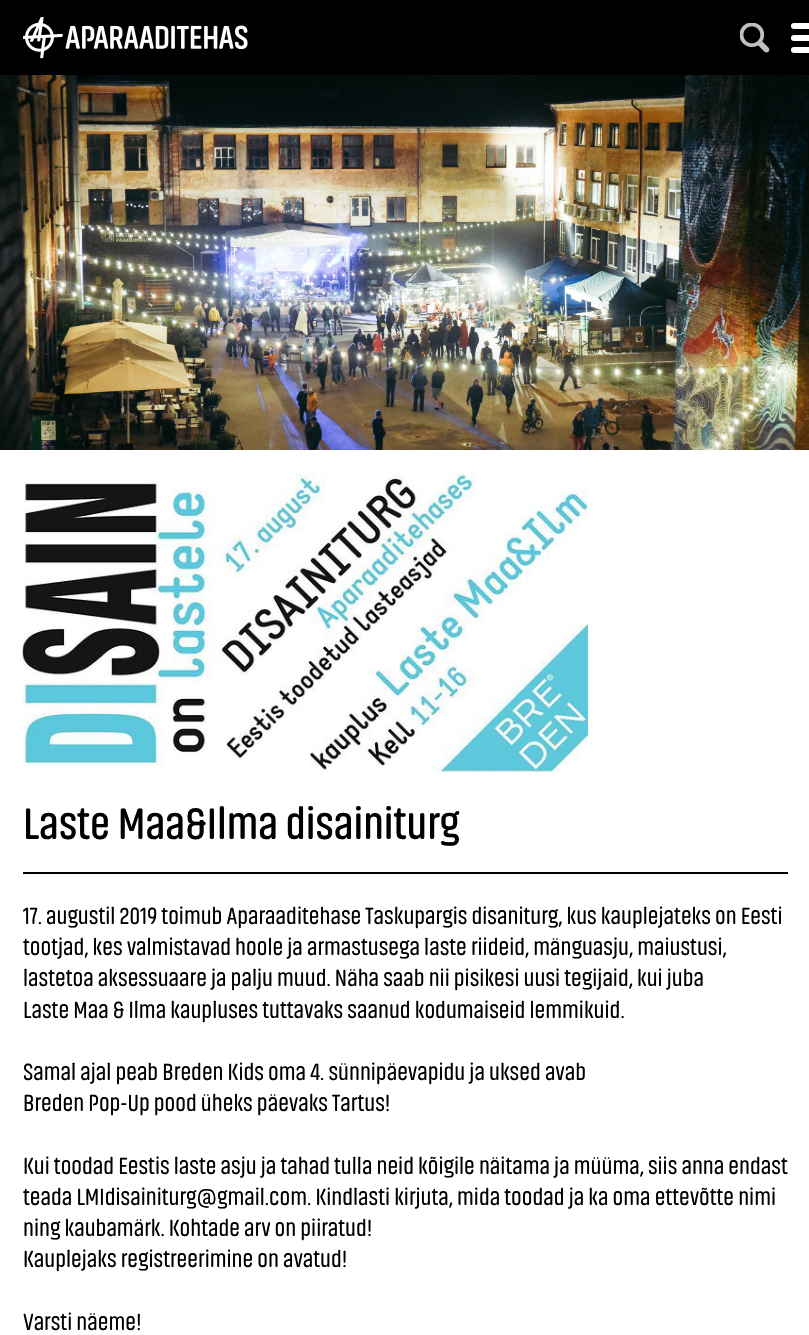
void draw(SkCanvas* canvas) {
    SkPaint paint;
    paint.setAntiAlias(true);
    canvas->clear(0xFFFFFFFF);
    paint.setColor(0xFF000000);
    canvas->drawRect(SkRect::MakeXYWH(0, 0, 809, 75), paint);
    canvas->drawImageRect(SkImages::DeferredFromEncodedData(SkData::MakeFromFileName("img1.png")), SkRect::MakeXYWH(23, 17, 225, 42), SkSamplingOptions());
    canvas->drawImageRect(SkImages::DeferredFromEncodedData(SkData::MakeFromFileName("img2.png")), SkRect::MakeXYWH(740, 23, 30, 30), SkSamplingOptions());
    paint.setColor(0xFFFFFFFF);
    canvas->drawRoundRect(SkRect::MakeXYWH(791, 23, 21, 6), 3, 3, paint);
    canvas->drawRoundRect(SkRect::MakeXYWH(791, 35, 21, 6), 3, 3, paint);
    canvas->drawRoundRect(SkRect::MakeXYWH(791, 47, 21, 6), 3, 3, paint);
    canvas->drawImageRect(SkImages::DeferredFromEncodedData(SkData::MakeFromFileName("img3.png")), SkRect::MakeXYWH(0, 75, 809, 375), SkSamplingOptions());
    canvas->drawImageRect(SkImages::DeferredFromEncodedData(SkData::MakeFromFileName("img4.png")), SkRect::MakeXYWH(22, 472, 566, 301), SkSamplingOptions());
    paint.setColor(0xFF000000);
    canvas->drawRect(SkRect::MakeXYWH(23, 872, 765, 2), paint);
    SkFont font1(fontMgr->matchFamilyStyle("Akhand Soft", SkFontStyle(600, SkFontStyle::kNormal_Width, SkFontStyle::kUpright_Slant)), 45);
    font1.setSubpixel(true);
    canvas->drawString("Laste Maa&Ilma disainiturg", 23, 839, font1, paint);
    SkFont font2(fontMgr->matchFamilyStyle("Akhand Soft", SkFontStyle::Normal()), 24);
    font2.setSubpixel(true);
    canvas->drawString("17. augustil 2019 toimub Aparaaditehase Taskupargis disaniturg, kus kauplejateks on Eesti", 23, 924, font2, paint);
    canvas->drawString("tootjad, kes valmistavad hoole ja armastusega laste riideid, mänguasju, maiustusi,", 23, 955, font2, paint);
    canvas->drawString("lastetoa aksessuaare ja palju muud. Näha saab nii pisikesi uusi tegijaid, kui juba", 23, 986, font2, paint);
    canvas->drawString("Laste Maa & Ilma kaupluses tuttavaks saanud kodumaiseid lemmikuid.", 23, 1018, font2, paint);
    canvas->drawString("Samal ajal peab Breden Kids oma 4. sünnipäevapidu ja uksed avab", 23, 1080, font2, paint);
    canvas->drawString("Breden Pop-Up pood üheks päevaks Tartus!", 23, 1111, font2, paint);
    canvas->drawString("Kui toodad Eestis laste asju ja tahad tulla neid kõigile näitama ja müüma, siis anna endast", 23, 1174, font2, paint);
    canvas->drawString("teada LMIdisainiturg@gmail.com. Kindlasti kirjuta, mida toodad ja ka oma ettevõtte nimi", 23, 1205, font2, paint);
    canvas->drawString("ning kaubamärk. Kohtade arv on piiratud!", 23, 1236, font2, paint);
    canvas->drawString("Kauplejaks registreerimine on avatud!", 23, 1267, font2, paint);
    canvas->drawString("Varsti näeme!", 23, 1330, font2, paint);
}
